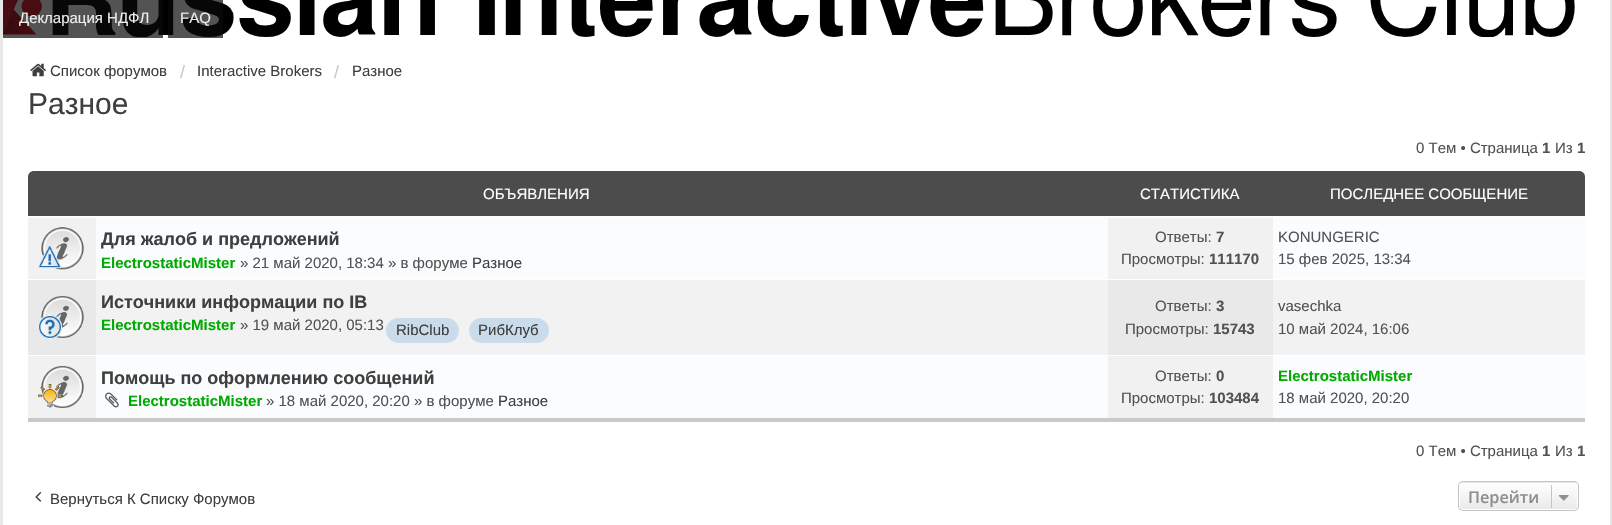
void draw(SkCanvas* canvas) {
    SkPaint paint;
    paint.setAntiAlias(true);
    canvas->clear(0xFFFFFFFF);
    paint.setColor(0xFFE7E7E7);
    canvas->drawRect(SkRect::MakeXYWH(1610, 0, 2, 525), paint);
    canvas->drawRect(SkRect::MakeXYWH(0, 0, 3, 525), paint);
    canvas->drawImageRect(SkImages::DeferredFromEncodedData(SkData::MakeFromFileName("img1.png")), SkRect::MakeXYWH(3, 0, 1572, 37), SkSamplingOptions());
    paint.setColor(0xB30A0A0A);
    canvas->drawRect(SkRect::MakeXYWH(3, 0, 160, 38), paint);
    SkFont font1(fontMgr->matchFamilyStyle("Liberation Sans", SkFontStyle::Normal()), 15);
    font1.setSubpixel(true);
    paint.setColor(0xFFEEEEEE);
    canvas->drawString("Декларация НДФЛ", 19, 23, font1, paint);
    paint.setColor(0xB30A0A0A);
    canvas->drawRect(SkRect::MakeXYWH(168, 0, 55, 38), paint);
    paint.setColor(0xFFEEEEEE);
    canvas->drawString("FAQ", 180, 23, font1, paint);
    canvas->drawImageRect(SkImages::DeferredFromEncodedData(SkData::MakeFromFileName("img2.png")), SkRect::MakeXYWH(30, 63, 16, 14), SkSamplingOptions());
    paint.setColor(0xFF3F3F3F);
    canvas->drawString("Список форумов", 50, 76, font1, paint);
    SkFont font2(fontMgr->matchFamilyStyle("Liberation Sans", SkFontStyle::Normal()), 18);
    font2.setSubpixel(true);
    paint.setColor(0xFFCACACA);
    canvas->drawString("/", 180, 78, font2, paint);
    paint.setColor(0xFF3F3F3F);
    canvas->drawString("Interactive Brokers", 197, 76, font1, paint);
    paint.setColor(0xFFCACACA);
    canvas->drawString("/", 334, 78, font2, paint);
    paint.setColor(0xFF3F3F3F);
    canvas->drawString("Разное", 352, 76, font1, paint);
    SkFont font3(fontMgr->matchFamilyStyle("Liberation Sans", SkFontStyle::Normal()), 30);
    font3.setSubpixel(true);
    canvas->drawString("Разное", 28, 114, font3, paint);
    paint.setColor(0xFF525252);
    canvas->drawString("0 Тем • Страница", 1416, 153, font1, paint);
    SkFont font4(fontMgr->matchFamilyStyle("Liberation Sans", SkFontStyle::Bold()), 15);
    font4.setSubpixel(true);
    canvas->drawString("1", 1542, 153, font4, paint);
    canvas->drawString("Из", 1555, 153, font1, paint);
    canvas->drawString("1", 1577, 153, font4, paint);
    paint.setColor(0xFF4C4C4C);
    canvas->drawPath(SkPathBuilder().moveTo(34, 171).lineTo(1579, 171).cubicTo(1582.5f, 171, 1585, 173.5f, 1585, 177).lineTo(1585, 421).lineTo(28, 421).lineTo(28, 177).cubicTo(28, 173.5f, 30.5f, 171, 34, 171).close().detach(), paint);
    paint.setColor(0xFFCACACA);
    canvas->drawRect(SkRect::MakeXYWH(28, 418, 1557, 4), paint);
    paint.setColor(0xFFFFFFFF);
    canvas->drawString("ОБЪЯВЛЕНИЯ", 483, 199, font1, paint);
    canvas->drawString("СТАТИСТИКА", 1140, 199, font1, paint);
    canvas->drawString("ПОСЛЕДНЕЕ СООБЩЕНИЕ", 1330, 199, font1, paint);
    paint.setColor(0xFFFAFCFE);
    canvas->drawRect(SkRect::MakeXYWH(28, 217, 1557, 201), paint);
    paint.setColor(0xFFFFFFFF);
    canvas->drawRect(SkRect::MakeXYWH(28, 216, 1557, 1), paint);
    paint.setColor(0xFFF1F1F1);
    canvas->drawRect(SkRect::MakeXYWH(28, 218, 68, 61), paint);
    canvas->drawImageRect(SkImages::DeferredFromEncodedData(SkData::MakeFromFileName("img3.png")), SkRect::MakeXYWH(41, 227, 43, 43), SkSamplingOptions());
    canvas->drawImageRect(SkImages::DeferredFromEncodedData(SkData::MakeFromFileName("img4.png")), SkRect::MakeXYWH(38, 245, 23, 23), SkSamplingOptions());
    SkFont font5(fontMgr->matchFamilyStyle("Liberation Sans", SkFontStyle::Bold()), 18);
    font5.setSubpixel(true);
    paint.setColor(0xFF3F3F3F);
    canvas->drawString("Для жалоб и предложений", 101, 245, font5, paint);
    paint.setColor(0xFF00AA00);
    canvas->drawString("ElectrostaticMister", 101, 268, font4, paint);
    paint.setColor(0xFF525252);
    canvas->drawString("» 21 май 2020, 18:34 » в форуме", 240, 268, font1, paint);
    paint.setColor(0xFF3F3F3F);
    canvas->drawString("Разное", 472, 268, font1, paint);
    paint.setColor(0xFFF1F1F1);
    canvas->drawRect(SkRect::MakeXYWH(1108, 218, 165, 61), paint);
    paint.setColor(0xFF525252);
    canvas->drawString("Ответы:", 1155, 242, font1, paint);
    canvas->drawString("7", 1216, 242, font4, paint);
    canvas->drawString("Просмотры:", 1121, 264, font1, paint);
    canvas->drawString("111170", 1209, 264, font4, paint);
    canvas->drawString("KONUNGERIC", 1278, 242, font1, paint);
    canvas->drawString("15 фев 2025, 13:34", 1278, 264, font1, paint);
    paint.setColor(0xFFF2F2F2);
    canvas->drawRect(SkRect::MakeXYWH(96, 280, 1489, 75), paint);
    paint.setColor(0xFFFFFFFF);
    canvas->drawRect(SkRect::MakeXYWH(28, 279, 1557, 1), paint);
    paint.setColor(0xFFE9E9E9);
    canvas->drawRect(SkRect::MakeXYWH(28, 280, 68, 75), paint);
    canvas->drawImageRect(SkImages::DeferredFromEncodedData(SkData::MakeFromFileName("img5.png")), SkRect::MakeXYWH(41, 296, 43, 42), SkSamplingOptions());
    canvas->drawImageRect(SkImages::DeferredFromEncodedData(SkData::MakeFromFileName("img6.png")), SkRect::MakeXYWH(38, 315, 24, 24), SkSamplingOptions());
    paint.setColor(0xFF3F3F3F);
    canvas->drawString("Источники информации по IB", 101, 308, font5, paint);
    paint.setColor(0xFF00AA00);
    canvas->drawString("ElectrostaticMister", 101, 330, font4, paint);
    paint.setColor(0xFF525252);
    canvas->drawString("» 19 май 2020, 05:13", 240, 330, font1, paint);
    paint.setColor(0xFFCADCEB);
    canvas->drawRoundRect(SkRect::MakeXYWH(386, 318, 73, 25), 12.5f, 12.5f, paint);
    paint.setColor(0xFF3F3F3F);
    canvas->drawString("RibClub", 396, 335, font1, paint);
    paint.setColor(0xFFCADCEB);
    canvas->drawRoundRect(SkRect::MakeXYWH(469, 318, 80, 25), 12.5f, 12.5f, paint);
    paint.setColor(0xFF3F3F3F);
    canvas->drawString("РибКлуб", 478, 335, font1, paint);
    paint.setColor(0xFFE9E9E9);
    canvas->drawRect(SkRect::MakeXYWH(1108, 280, 165, 75), paint);
    paint.setColor(0xFF525252);
    canvas->drawString("Ответы:", 1155, 311, font1, paint);
    canvas->drawString("3", 1216, 311, font4, paint);
    canvas->drawString("Просмотры:", 1125, 334, font1, paint);
    canvas->drawString("15743", 1213, 334, font4, paint);
    canvas->drawString("vasechka", 1278, 311, font1, paint);
    canvas->drawString("10 май 2024, 16:06", 1278, 334, font1, paint);
    paint.setColor(0xFFFFFFFF);
    canvas->drawRect(SkRect::MakeXYWH(28, 355, 1557, 1), paint);
    paint.setColor(0xFFF1F1F1);
    canvas->drawRect(SkRect::MakeXYWH(28, 356, 68, 62), paint);
    canvas->drawImageRect(SkImages::DeferredFromEncodedData(SkData::MakeFromFileName("img7.png")), SkRect::MakeXYWH(41, 366, 43, 42), SkSamplingOptions());
    canvas->drawImageRect(SkImages::DeferredFromEncodedData(SkData::MakeFromFileName("img8.png")), SkRect::MakeXYWH(38, 384, 24, 24), SkSamplingOptions());
    paint.setColor(0xFF3F3F3F);
    canvas->drawString("Помощь по оформлению сообщений", 101, 384, font5, paint);
    canvas->drawImageRect(SkImages::DeferredFromEncodedData(SkData::MakeFromFileName("img9.png")), SkRect::MakeXYWH(105, 392, 14, 16), SkSamplingOptions());
    paint.setColor(0xFF00AA00);
    canvas->drawString("ElectrostaticMister", 128, 406, font4, paint);
    paint.setColor(0xFF525252);
    canvas->drawString("» 18 май 2020, 20:20 » в форуме", 266, 406, font1, paint);
    paint.setColor(0xFF3F3F3F);
    canvas->drawString("Разное", 498, 406, font1, paint);
    paint.setColor(0xFFF1F1F1);
    canvas->drawRect(SkRect::MakeXYWH(1108, 356, 165, 62), paint);
    paint.setColor(0xFF525252);
    canvas->drawString("Ответы:", 1155, 381, font1, paint);
    canvas->drawString("0", 1216, 381, font4, paint);
    canvas->drawString("Просмотры:", 1121, 403, font1, paint);
    canvas->drawString("103484", 1209, 403, font4, paint);
    paint.setColor(0xFF00AA00);
    canvas->drawString("ElectrostaticMister", 1278, 381, font4, paint);
    paint.setColor(0xFF525252);
    canvas->drawString("18 май 2020, 20:20", 1278, 403, font1, paint);
    canvas->drawString("0 Тем • Страница", 1416, 456, font1, paint);
    canvas->drawString("1", 1542, 456, font4, paint);
    canvas->drawString("Из", 1555, 456, font1, paint);
    canvas->drawString("1", 1577, 456, font4, paint);
    canvas->drawImageRect(SkImages::DeferredFromEncodedData(SkData::MakeFromFileName("img10.png")), SkRect::MakeXYWH(35, 492, 7, 10), SkSamplingOptions());
    paint.setColor(0xFF3F3F3F);
    canvas->drawString("Вернуться К Списку Форумов", 50, 504, font1, paint);
    canvas->save();
    canvas->clipPath(SkPathBuilder().moveTo(1463, 481).lineTo(1574, 481).cubicTo(1577, 481, 1579, 483, 1579, 486).lineTo(1579, 506).cubicTo(1579, 509, 1577, 511, 1574, 511).lineTo(1463, 511).cubicTo(1460, 511, 1458, 509, 1458, 506).lineTo(1458, 486).cubicTo(1458, 483, 1460, 481, 1463, 481).close().detach(), true);
    {
        const SkColor colors[] = {0xFFFFFFFF, 0xFFE9E9E9};
        const float stops[] = {0, 1};
        const SkPoint ends[] = {{1518, 455}, {1518, 483}};
        paint.setShader(SkGradientShader::MakeLinear(ends, colors, stops, 2, SkTileMode::kClamp));
        paint.setAlpha(255);
    }
    canvas->drawRect(SkRect::MakeXYWH(1458, 481, 121, 2), paint);
    {
        const SkColor colors[] = {0xFFFFFFFF, 0xFFE9E9E9};
        const float stops[] = {0, 1};
        const SkPoint ends[] = {{1518, 483}, {1518, 510}};
        paint.setShader(SkGradientShader::MakeLinear(ends, colors, stops, 2, SkTileMode::kClamp));
        paint.setAlpha(255);
    }
    canvas->drawRect(SkRect::MakeXYWH(1458, 483, 121, 27), paint);
    canvas->restore();
    paint.setStyle(SkPaint::kStroke_Style);
    paint.setStrokeWidth(1);
    paint.setShader(nullptr);
    paint.setColor(0xFFFFFFFF);
    canvas->drawRoundRect(SkRect::MakeXYWH(1459.5f, 483.5f, 118, 26), 3.5f, 3.5f, paint);
    paint.setColor(0xFFC7C3BF);
    canvas->drawRoundRect(SkRect::MakeXYWH(1458.5f, 481.5f, 120, 29), 4.5f, 4.5f, paint);
    SkFont font6(fontMgr->matchFamilyStyle("Open Sans", SkFontStyle(600, SkFontStyle::kNormal_Width, SkFontStyle::kUpright_Slant)), 16.25f);
    font6.setSubpixel(true);
    paint.setStyle(SkPaint::kFill_Style);
    paint.setColor(0xFF8F8F8F);
    canvas->drawString("Перейти", 1468, 503, font6, paint);
    paint.setColor(0xFFC7C3BF);
    canvas->drawRect(SkRect::MakeXYWH(1551, 485, 1, 23), paint);
    canvas->drawImageRect(SkImages::DeferredFromEncodedData(SkData::MakeFromFileName("img11.png")), SkRect::MakeXYWH(1558, 495, 11, 6), SkSamplingOptions());
}
